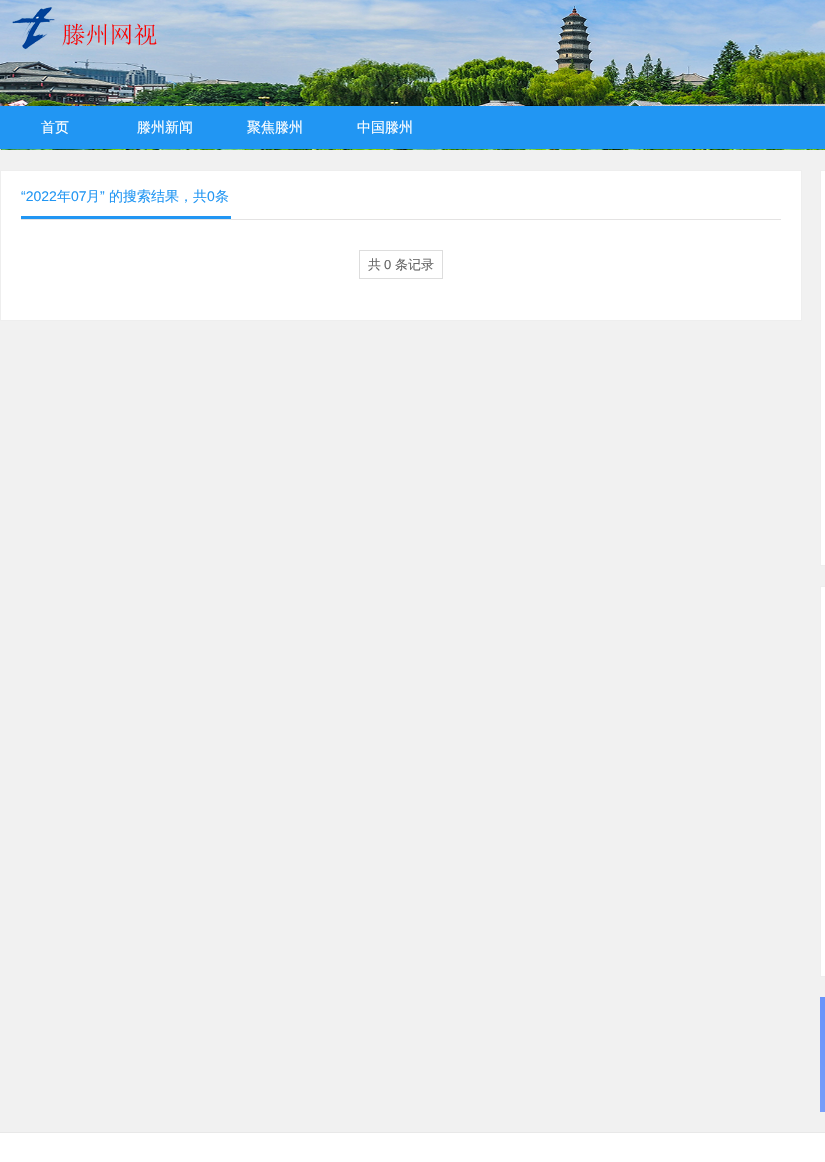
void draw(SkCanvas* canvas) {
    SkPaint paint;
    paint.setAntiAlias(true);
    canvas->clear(0xFFF1F1F1);
    canvas->drawImageRect(SkImages::DeferredFromEncodedData(SkData::MakeFromFileName("img1.png")), SkRect::MakeXYWH(0, 0, 825, 150), SkSamplingOptions());
    canvas->drawImageRect(SkImages::DeferredFromEncodedData(SkData::MakeFromFileName("img2.png")), SkRect::MakeXYWH(12, 7, 145, 48), SkSamplingOptions());
    paint.setColor(0xFF2196F3);
    canvas->drawRect(SkRect::MakeXYWH(0, 106, 825, 43), paint);
    SkFont font1(fontMgr->matchFamilyStyle("WenQuanYi Zen Hei", SkFontStyle(500, SkFontStyle::kNormal_Width, SkFontStyle::kUpright_Slant)), 14);
    font1.setSubpixel(true);
    paint.setColor(0xFFFFFFFF);
    canvas->drawString("首页", 41, 132, font1, paint);
    canvas->drawString("滕州新闻", 137, 132, font1, paint);
    canvas->drawString("聚焦滕州", 247, 132, font1, paint);
    canvas->drawString("中国滕州", 357, 132, font1, paint);
    canvas->drawRect(SkRect::MakeXYWH(0.5f, 170.5f, 801, 150), paint);
    paint.setStyle(SkPaint::kStroke_Style);
    paint.setStrokeWidth(1);
    paint.setColor(0xFFEEEEEE);
    canvas->drawRect(SkRect::MakeXYWH(0.5f, 170.5f, 801, 150), paint);
    paint.setStyle(SkPaint::kFill_Style);
    paint.setColor(0xFFE4E3E3);
    canvas->drawRect(SkRect::MakeXYWH(21, 219, 760, 1), paint);
    paint.setColor(0xFF2196F3);
    canvas->drawRect(SkRect::MakeXYWH(21, 216, 210, 3), paint);
    SkFont font2(fontMgr->matchFamilyStyle("Liberation Sans", SkFontStyle::Normal()), 14);
    font2.setSubpixel(true);
    canvas->drawString("“2022", 21, 201, font2, paint);
    canvas->drawString("年", 57, 201, font1, paint);
    canvas->drawString("07", 71, 201, font2, paint);
    canvas->drawString("月", 86, 201, font1, paint);
    canvas->drawString("”", 100, 201, font2, paint);
    canvas->drawString("的搜索结果，共", 109, 201, font1, paint);
    canvas->drawString("0", 207, 201, font2, paint);
    canvas->drawString("条", 215, 201, font1, paint);
    SkFont font3(fontMgr->matchFamilyStyle("WenQuanYi Zen Hei", SkFontStyle(500, SkFontStyle::kNormal_Width, SkFontStyle::kUpright_Slant)), 13);
    font3.setSubpixel(true);
    paint.setColor(0xFF666666);
    canvas->drawString("共", 368, 269, font3, paint);
    paint.setColor(0xFFDDDDDD);
    canvas->drawRect(SkRect::MakeXYWH(359, 278, 36, 1), paint);
    canvas->drawRect(SkRect::MakeXYWH(359, 250, 84, 1), paint);
    canvas->drawRect(SkRect::MakeXYWH(359, 250, 1, 29), paint);
    SkFont font4(fontMgr->matchFamilyStyle("Liberation Sans", SkFontStyle::Normal()), 13);
    font4.setSubpixel(true);
    paint.setColor(0xFF666666);
    canvas->drawString("0", 384, 269, font4, paint);
    canvas->drawString("条记录", 395, 269, font3, paint);
    paint.setColor(0xFFDDDDDD);
    canvas->drawRect(SkRect::MakeXYWH(442, 250, 1, 29), paint);
    canvas->drawRect(SkRect::MakeXYWH(395, 278, 48, 1), paint);
    paint.setColor(0xFFFFFFFF);
    canvas->drawRect(SkRect::MakeXYWH(820.5f, 170.5f, 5, 395), paint);
    paint.setStyle(SkPaint::kStroke_Style);
    paint.setColor(0xFFEEEEEE);
    canvas->drawRect(SkRect::MakeXYWH(820.5f, 170.5f, 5, 395), paint);
    paint.setStyle(SkPaint::kFill_Style);
    paint.setColor(0xFFFFFFFF);
    canvas->drawRect(SkRect::MakeXYWH(820.5f, 586.5f, 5, 390), paint);
    paint.setStyle(SkPaint::kStroke_Style);
    paint.setColor(0xFFEEEEEE);
    canvas->drawRect(SkRect::MakeXYWH(820.5f, 586.5f, 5, 390), paint);
    paint.setStyle(SkPaint::kFill_Style);
    {
        const SkColor colors[] = {0xFF789EF9, 0xFF3B74FE};
        const float stops[] = {0, 1};
        const SkPoint ends[] = {{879, 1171}, {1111, 938}};
        paint.setShader(SkGradientShader::MakeLinear(ends, colors, stops, 2, SkTileMode::kClamp));
        paint.setAlpha(255);
    }
    canvas->drawRect(SkRect::MakeXYWH(820, 997, 5, 115), paint);
    paint.setShader(nullptr);
    paint.setColor(0xFFFFFFFF);
    canvas->drawRect(SkRect::MakeXYWH(0, 1133, 825, 29), paint);
    paint.setColor(0xFFE8E8E8);
    canvas->drawRect(SkRect::MakeXYWH(0, 1132, 825, 1), paint);
}
